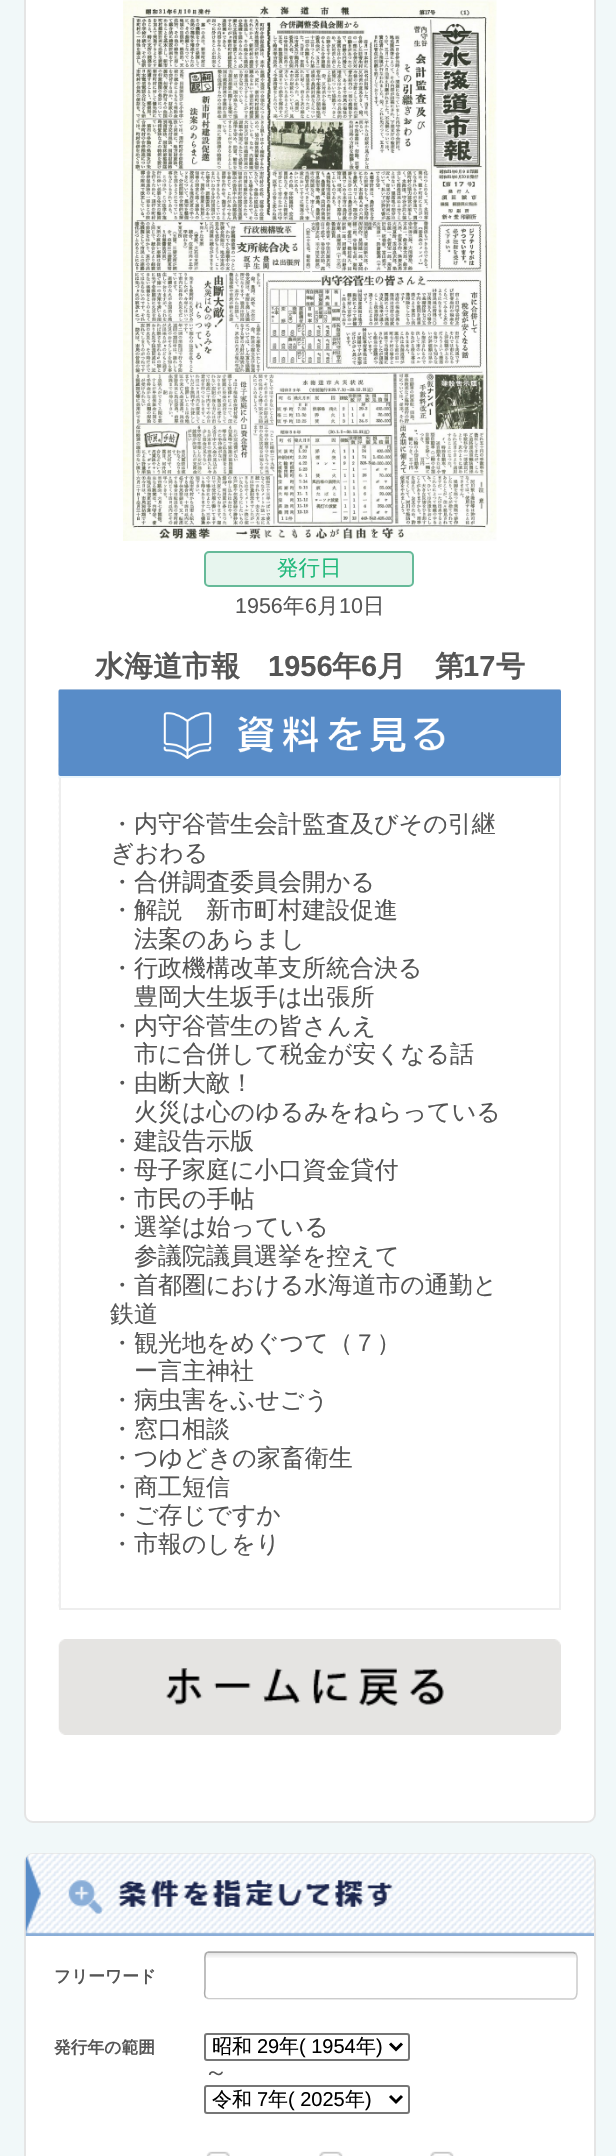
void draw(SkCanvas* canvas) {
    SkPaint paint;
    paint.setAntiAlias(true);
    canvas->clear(0xFFF1F8F9);
    paint.setColor(0xFFFFFFFF);
    canvas->drawRoundRect(SkRect::MakeXYWH(25, -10, 570, 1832), 8, 8, paint);
    paint.setStyle(SkPaint::kStroke_Style);
    paint.setStrokeWidth(2);
    paint.setColor(0xFFE5E5E5);
    canvas->drawRoundRect(SkRect::MakeXYWH(25, -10, 570, 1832), 8, 8, paint);
    canvas->drawImageRect(SkImages::DeferredFromEncodedData(SkData::MakeFromFileName("img1.png")), SkRect::MakeXYWH(123, 0, 374, 541), SkSamplingOptions());
    paint.setStyle(SkPaint::kFill_Style);
    paint.setColor(0xFFE7F5EE);
    canvas->drawRoundRect(SkRect::MakeXYWH(205, 552, 208, 34), 4, 4, paint);
    paint.setStyle(SkPaint::kStroke_Style);
    paint.setColor(0xFF66BA99);
    canvas->drawRoundRect(SkRect::MakeXYWH(205, 552, 208, 34), 4, 4, paint);
    SkFont font1(fontMgr->matchFamilyStyle("WenQuanYi Zen Hei", SkFontStyle(500, SkFontStyle::kNormal_Width, SkFontStyle::kUpright_Slant)), 21.5f);
    font1.setSubpixel(true);
    paint.setStyle(SkPaint::kFill_Style);
    paint.setColor(0xFF20B97B);
    canvas->drawString("発行日", 277, 575, font1, paint);
    SkFont font2(fontMgr->matchFamilyStyle("Liberation Sans", SkFontStyle::Normal()), 21.5f);
    font2.setSubpixel(true);
    paint.setColor(0xFF555555);
    canvas->drawString("1956", 235, 613, font2, paint);
    canvas->drawString("年", 283, 613, font1, paint);
    canvas->drawString("6", 305, 613, font2, paint);
    canvas->drawString("月", 317, 613, font1, paint);
    canvas->drawString("10", 339, 613, font2, paint);
    canvas->drawString("日", 363, 613, font1, paint);
    paint.setColor(0xFFEEEEEE);
    canvas->drawRect(SkRect::MakeXYWH(59, 689, 502, 2), paint);
    SkFont font3(fontMgr->matchFamilyStyle("WenQuanYi Zen Hei", SkFontStyle::Bold()), 29);
    font3.setSubpixel(true);
    paint.setColor(0xFF555555);
    canvas->drawString("水海道市報", 95, 676, font3, paint);
    SkFont font4(fontMgr->matchFamilyStyle("Liberation Sans", SkFontStyle::Bold()), 29);
    font4.setSubpixel(true);
    canvas->drawString("1956", 268, 676, font4, paint);
    canvas->drawString("年", 332, 676, font3, paint);
    canvas->drawString("6", 361, 676, font4, paint);
    canvas->drawString("月　第", 377, 676, font3, paint);
    canvas->drawString("17", 463, 676, font4, paint);
    canvas->drawString("号", 496, 676, font3, paint);
    canvas->drawImageRect(SkImages::DeferredFromEncodedData(SkData::MakeFromFileName("img3.png")), SkRect::MakeXYWH(58, 757, 1, 852), SkSamplingOptions());
    paint.setStyle(SkPaint::kStroke_Style);
    paint.setColor(0xFFEEEEEE);
    canvas->drawRect(SkRect::MakeXYWH(60, 759, 500, 850), paint);
    canvas->drawImageRect(SkImages::DeferredFromEncodedData(SkData::MakeFromFileName("img2.png")), SkRect::MakeXYWH(58, 689, 503, 89), SkSamplingOptions());
    SkFont font5(fontMgr->matchFamilyStyle("WenQuanYi Zen Hei", SkFontStyle(500, SkFontStyle::kNormal_Width, SkFontStyle::kUpright_Slant)), 24);
    font5.setSubpixel(true);
    paint.setStyle(SkPaint::kFill_Style);
    paint.setColor(0xFF555555);
    canvas->drawString("・内守谷菅生会計監査及びその引継", 110, 832, font5, paint);
    canvas->drawString("ぎおわる", 110, 861, font5, paint);
    canvas->drawString("・合併調査委員会開かる", 110, 890, font5, paint);
    canvas->drawString("・解説　新市町村建設促進", 110, 918, font5, paint);
    canvas->drawString("法案のあらまし", 134, 947, font5, paint);
    canvas->drawString("・行政機構改革支所統合決る", 110, 976, font5, paint);
    canvas->drawString("豊岡大生坂手は出張所", 134, 1005, font5, paint);
    canvas->drawString("・内守谷菅生の皆さんえ", 110, 1034, font5, paint);
    canvas->drawString("市に合併して税金が安くなる話", 134, 1062, font5, paint);
    canvas->drawString("・由断大敵！", 110, 1091, font5, paint);
    canvas->drawString("火災は心のゆるみをねらっている", 134, 1120, font5, paint);
    canvas->drawString("・建設告示版", 110, 1149, font5, paint);
    canvas->drawString("・母子家庭に小口資金貸付", 110, 1178, font5, paint);
    canvas->drawString("・市民の手帖", 110, 1207, font5, paint);
    canvas->drawString("・選挙は始っている", 110, 1235, font5, paint);
    canvas->drawString("参議院議員選挙を控えて", 134, 1264, font5, paint);
    canvas->drawString("・首都圏における水海道市の通勤と", 110, 1293, font5, paint);
    canvas->drawString("鉄道", 110, 1322, font5, paint);
    canvas->drawString("・観光地をめぐつて（７）", 110, 1351, font5, paint);
    canvas->drawString("ー言主神社", 134, 1379, font5, paint);
    canvas->drawString("・病虫害をふせごう", 110, 1408, font5, paint);
    canvas->drawString("・窓口相談", 110, 1437, font5, paint);
    canvas->drawString("・つゆどきの家畜衛生", 110, 1466, font5, paint);
    canvas->drawString("・商工短信", 110, 1495, font5, paint);
    canvas->drawString("・ご存じですか", 110, 1523, font5, paint);
    canvas->drawString("・市報のしをり", 110, 1552, font5, paint);
    canvas->drawImageRect(SkImages::DeferredFromEncodedData(SkData::MakeFromFileName("img4.png")), SkRect::MakeXYWH(58, 1639, 503, 96), SkSamplingOptions());
    paint.setColor(0xFFFFFFFF);
    canvas->drawRoundRect(SkRect::MakeXYWH(25, 1854, 570, 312), 8, 8, paint);
    paint.setStyle(SkPaint::kStroke_Style);
    paint.setColor(0xFFE5E5E5);
    canvas->drawRoundRect(SkRect::MakeXYWH(25, 1854, 570, 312), 8, 8, paint);
    canvas->drawImageRect(SkImages::DeferredFromEncodedData(SkData::MakeFromFileName("img5.png")), SkRect::MakeXYWH(25, 1853, 569, 83), SkSamplingOptions());
    canvas->drawImageRect(SkImages::DeferredFromEncodedData(SkData::MakeFromFileName("img6.png")), SkRect::MakeXYWH(68, 1880, 325, 34), SkSamplingOptions());
    SkFont font6(fontMgr->matchFamilyStyle("WenQuanYi Zen Hei", SkFontStyle::Bold()), 16.75f);
    font6.setSubpixel(true);
    paint.setStyle(SkPaint::kFill_Style);
    paint.setColor(0xFF555555);
    canvas->drawString("フリーワード", 54, 1982, font6, paint);
    canvas->drawImageRect(SkImages::DeferredFromEncodedData(SkData::MakeFromFileName("img7.png")), SkRect::MakeXYWH(204, 1952, 373, 6), SkSamplingOptions());
    paint.setStyle(SkPaint::kStroke_Style);
    paint.setStrokeWidth(1.5f);
    paint.setColor(0xFFCCCCCC);
    canvas->drawPath(SkPathBuilder().moveTo(575.5f, 1953.5f).cubicTo(578, 1955.5f, 577, 1960.5f, 577, 1962.5f).lineTo(577, 1988.5f).cubicTo(577, 1991.5f, 578, 1998.5f, 573, 1999).lineTo(208, 1998.5f).lineTo(206, 1997.5f).detach(), paint);
    paint.setColor(0xFFAAAAAA);
    canvas->drawPath(SkPathBuilder().moveTo(206, 1997.5f).cubicTo(203.5f, 1995.5f, 205, 1990.5f, 205, 1988.5f).lineTo(205, 1962.5f).cubicTo(205, 1959.5f, 203.5f, 1952.5f, 208.5f, 1952).lineTo(573.5f, 1952.5f).lineTo(575.5f, 1953.5f).detach(), paint);
    paint.setStyle(SkPaint::kFill_Style);
    paint.setColor(0xFF555555);
    canvas->drawString("発行年の範囲", 54, 2053, font6, paint);
    paint.setStyle(SkPaint::kStroke_Style);
    paint.setStrokeWidth(2);
    paint.setColor(0xFF767676);
    canvas->drawRoundRect(SkRect::MakeXYWH(205, 2034, 204, 26), 2, 2, paint);
    paint.setStrokeWidth(3);
    paint.setColor(0xFF000000);
    canvas->drawPath(SkPathBuilder().moveTo(390, 2043.5f).lineTo(396, 2049.5f).lineTo(402, 2043.5f).detach(), paint);
    SkFont font7(fontMgr->matchFamilyStyle("WenQuanYi Zen Hei", SkFontStyle(500, SkFontStyle::kNormal_Width, SkFontStyle::kUpright_Slant)), 20);
    font7.setSubpixel(true);
    paint.setStyle(SkPaint::kFill_Style);
    canvas->drawString("昭和", 212, 2053, font7, paint);
    SkFont font8(fontMgr->matchFamilyStyle("Liberation Sans", SkFontStyle::Normal()), 20);
    font8.setSubpixel(true);
    canvas->drawString("29", 257, 2053, font8, paint);
    canvas->drawString("年", 279, 2053, font7, paint);
    canvas->drawString("( 1954", 299, 2053, font8, paint);
    canvas->drawString("年", 356, 2053, font7, paint);
    canvas->drawString(")", 376, 2053, font8, paint);
    paint.setColor(0xFF555555);
    canvas->drawString("～", 204, 2080, font5, paint);
    paint.setStyle(SkPaint::kStroke_Style);
    paint.setStrokeWidth(2);
    paint.setColor(0xFF767676);
    canvas->drawRoundRect(SkRect::MakeXYWH(205, 2086, 204, 27), 2, 2, paint);
    paint.setStrokeWidth(3);
    paint.setColor(0xFF000000);
    canvas->drawPath(SkPathBuilder().moveTo(390, 2096).lineTo(396, 2102).lineTo(402, 2096).detach(), paint);
    paint.setStyle(SkPaint::kFill_Style);
    canvas->drawString("令和", 212, 2106, font7, paint);
    canvas->drawString("7", 257, 2106, font8, paint);
    canvas->drawString("年", 268, 2106, font7, paint);
    canvas->drawString("( 2025", 288, 2106, font8, paint);
    canvas->drawString("年", 345, 2106, font7, paint);
    canvas->drawString(")", 365, 2106, font8, paint);
    canvas->drawImageRect(SkImages::DeferredFromEncodedData(SkData::MakeFromFileName("img8.png")), SkRect::MakeXYWH(206, 2151, 24, 5), SkSamplingOptions());
    canvas->drawImageRect(SkImages::DeferredFromEncodedData(SkData::MakeFromFileName("img9.png")), SkRect::MakeXYWH(319, 2151, 24, 5), SkSamplingOptions());
    canvas->drawImageRect(SkImages::DeferredFromEncodedData(SkData::MakeFromFileName("img10.png")), SkRect::MakeXYWH(430, 2151, 24, 5), SkSamplingOptions());
}
